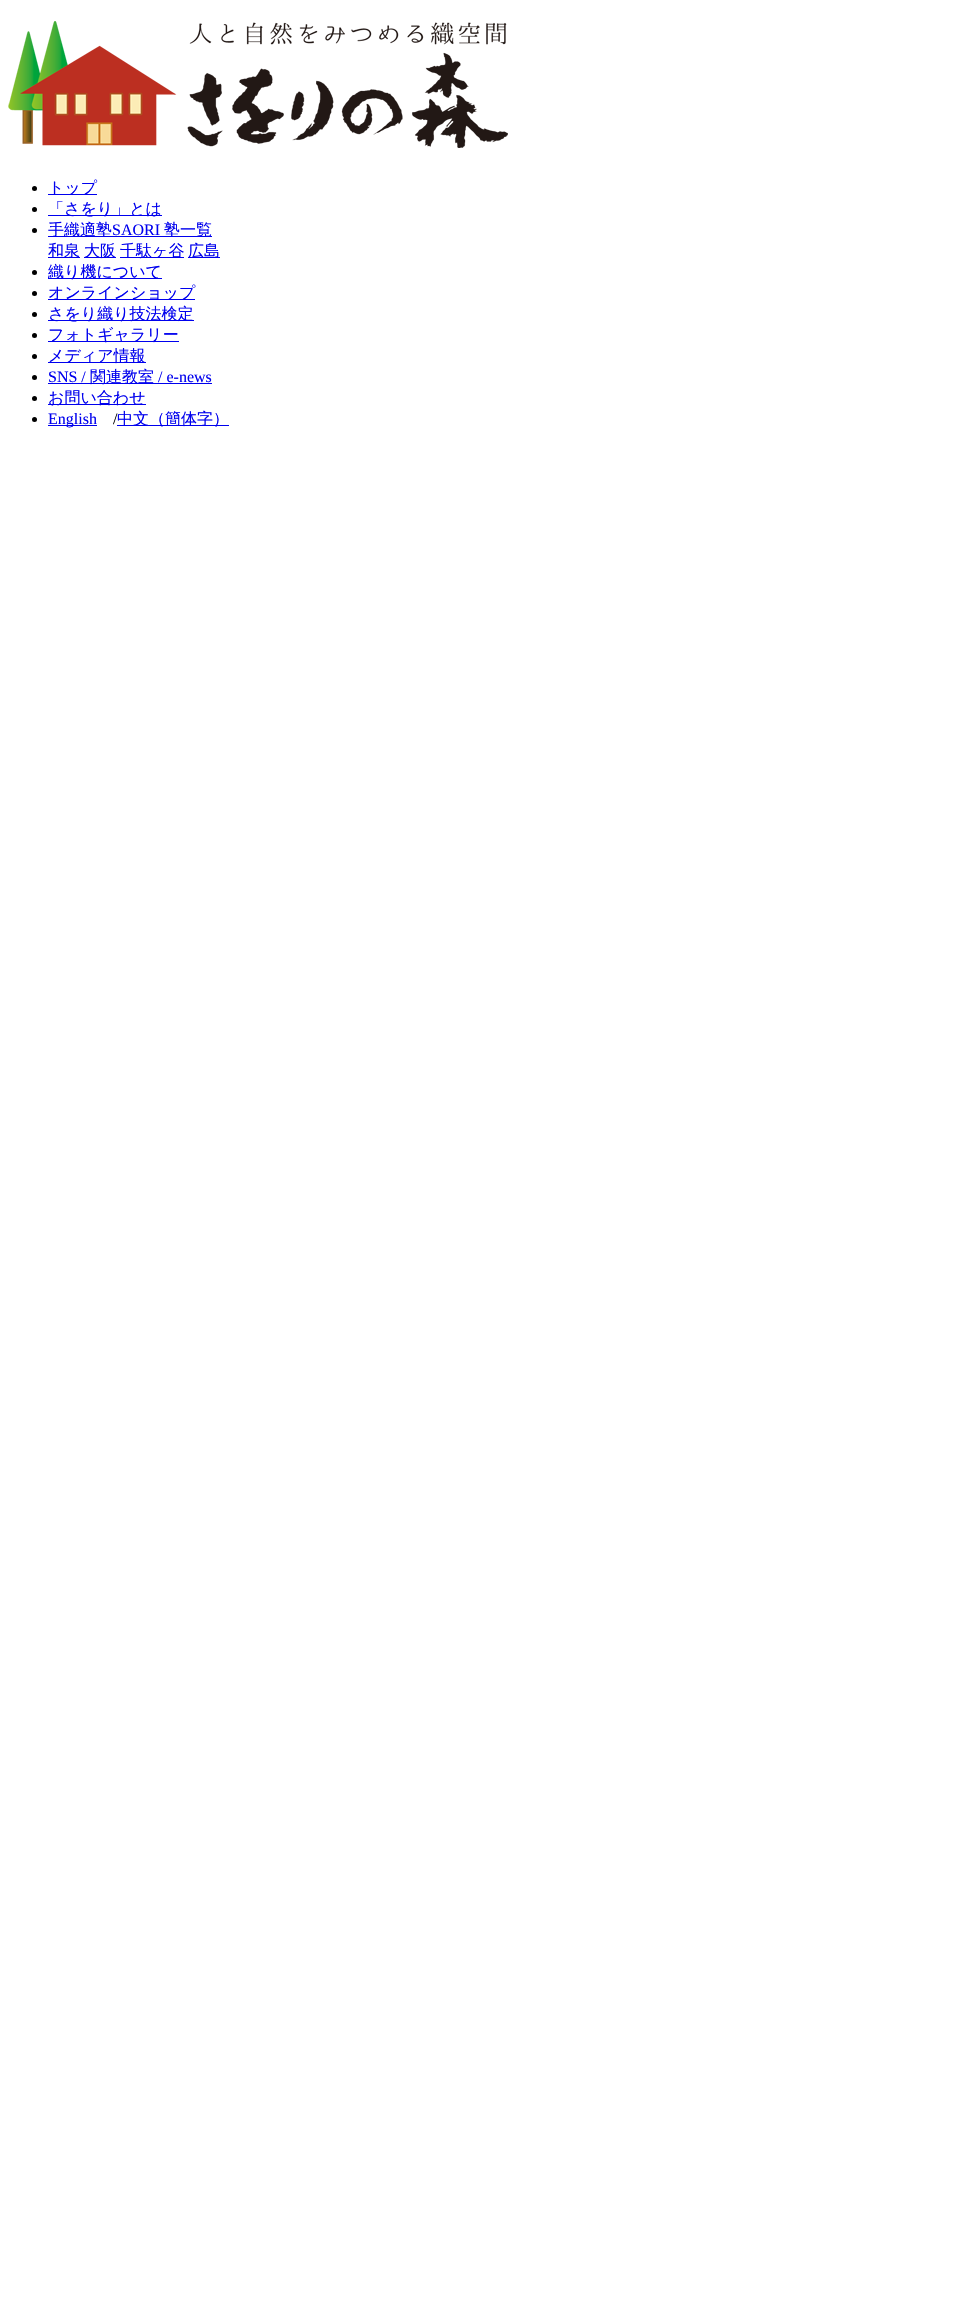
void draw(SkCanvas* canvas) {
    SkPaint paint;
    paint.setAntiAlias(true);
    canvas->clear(0xFFFFFFFF);
    canvas->drawImageRect(SkImages::DeferredFromEncodedData(SkData::MakeFromFileName("img1.png")), SkRect::MakeXYWH(8, 21, 500, 127), SkSamplingOptions());
    paint.setColor(0xFF000000);
    canvas->drawCircle(34.5f, 188.5f, 2.5f, paint);
    paint.setColor(0xFF0000EE);
    canvas->drawRect(SkRect::MakeXYWH(48, 194, 49, 1), paint);
    SkFont font1(fontMgr->matchFamilyStyle("WenQuanYi Zen Hei", SkFontStyle(500, SkFontStyle::kNormal_Width, SkFontStyle::kUpright_Slant)), 16);
    font1.setSubpixel(true);
    canvas->drawString("トップ", 48, 193, font1, paint);
    paint.setColor(0xFF000000);
    canvas->drawCircle(34.5f, 209.5f, 2.5f, paint);
    paint.setColor(0xFF0000EE);
    canvas->drawRect(SkRect::MakeXYWH(48, 215, 114, 1), paint);
    canvas->drawString("「さをり」とは", 48, 214, font1, paint);
    paint.setColor(0xFF000000);
    canvas->drawCircle(34.5f, 230.5f, 2.5f, paint);
    paint.setColor(0xFF0000EE);
    canvas->drawRect(SkRect::MakeXYWH(48, 236, 164, 1), paint);
    canvas->drawString("手織適塾", 48, 235, font1, paint);
    SkFont font2(fontMgr->matchFamilyStyle("Liberation Serif", SkFontStyle::Normal()), 16);
    font2.setSubpixel(true);
    canvas->drawString("SAORI", 112, 235, font2, paint);
    canvas->drawString("塾一覧", 164, 235, font1, paint);
    canvas->drawRect(SkRect::MakeXYWH(48, 257, 32, 1), paint);
    canvas->drawString("和泉", 48, 256, font1, paint);
    canvas->drawRect(SkRect::MakeXYWH(84, 257, 32, 1), paint);
    canvas->drawString("大阪", 84, 256, font1, paint);
    canvas->drawRect(SkRect::MakeXYWH(120, 257, 64, 1), paint);
    canvas->drawString("千駄ヶ谷", 120, 256, font1, paint);
    canvas->drawRect(SkRect::MakeXYWH(188, 257, 32, 1), paint);
    canvas->drawString("広島", 188, 256, font1, paint);
    paint.setColor(0xFF000000);
    canvas->drawCircle(34.5f, 272.5f, 2.5f, paint);
    paint.setColor(0xFF0000EE);
    canvas->drawRect(SkRect::MakeXYWH(48, 278, 114, 1), paint);
    canvas->drawString("織り機について", 48, 277, font1, paint);
    paint.setColor(0xFF000000);
    canvas->drawCircle(34.5f, 293.5f, 2.5f, paint);
    paint.setColor(0xFF0000EE);
    canvas->drawRect(SkRect::MakeXYWH(48, 299, 147, 1), paint);
    canvas->drawString("オンラインショップ", 48, 298, font1, paint);
    paint.setColor(0xFF000000);
    canvas->drawCircle(34.5f, 314.5f, 2.5f, paint);
    paint.setColor(0xFF0000EE);
    canvas->drawRect(SkRect::MakeXYWH(48, 320, 146, 1), paint);
    canvas->drawString("さをり織り技法検定", 48, 319, font1, paint);
    paint.setColor(0xFF000000);
    canvas->drawCircle(34.5f, 335.5f, 2.5f, paint);
    paint.setColor(0xFF0000EE);
    canvas->drawRect(SkRect::MakeXYWH(48, 341, 131, 1), paint);
    canvas->drawString("フォトギャラリー", 48, 340, font1, paint);
    paint.setColor(0xFF000000);
    canvas->drawCircle(34.5f, 356.5f, 2.5f, paint);
    paint.setColor(0xFF0000EE);
    canvas->drawRect(SkRect::MakeXYWH(48, 362, 98, 1), paint);
    canvas->drawString("メディア情報", 48, 361, font1, paint);
    paint.setColor(0xFF000000);
    canvas->drawCircle(34.5f, 377.5f, 2.5f, paint);
    paint.setColor(0xFF0000EE);
    canvas->drawString("SNS /", 48, 382, font2, paint);
    canvas->drawRect(SkRect::MakeXYWH(48, 383, 164, 1), paint);
    canvas->drawString("関連教室", 90, 382, font1, paint);
    canvas->drawString("/ e-news", 158, 382, font2, paint);
    paint.setColor(0xFF000000);
    canvas->drawCircle(34.5f, 398.5f, 2.5f, paint);
    paint.setColor(0xFF0000EE);
    canvas->drawRect(SkRect::MakeXYWH(48, 404, 98, 1), paint);
    canvas->drawString("お問い合わせ", 48, 403, font1, paint);
    paint.setColor(0xFF000000);
    canvas->drawCircle(34.5f, 419.5f, 2.5f, paint);
    paint.setColor(0xFF0000EE);
    canvas->drawRect(SkRect::MakeXYWH(48, 425, 49, 1), paint);
    canvas->drawString("English", 48, 424, font2, paint);
    paint.setColor(0xFF000000);
    canvas->drawString("/", 113, 424, font2, paint);
    paint.setColor(0xFF0000EE);
    canvas->drawRect(SkRect::MakeXYWH(117, 425, 112, 1), paint);
    canvas->drawString("中文（簡体字）", 117, 424, font1, paint);
}
